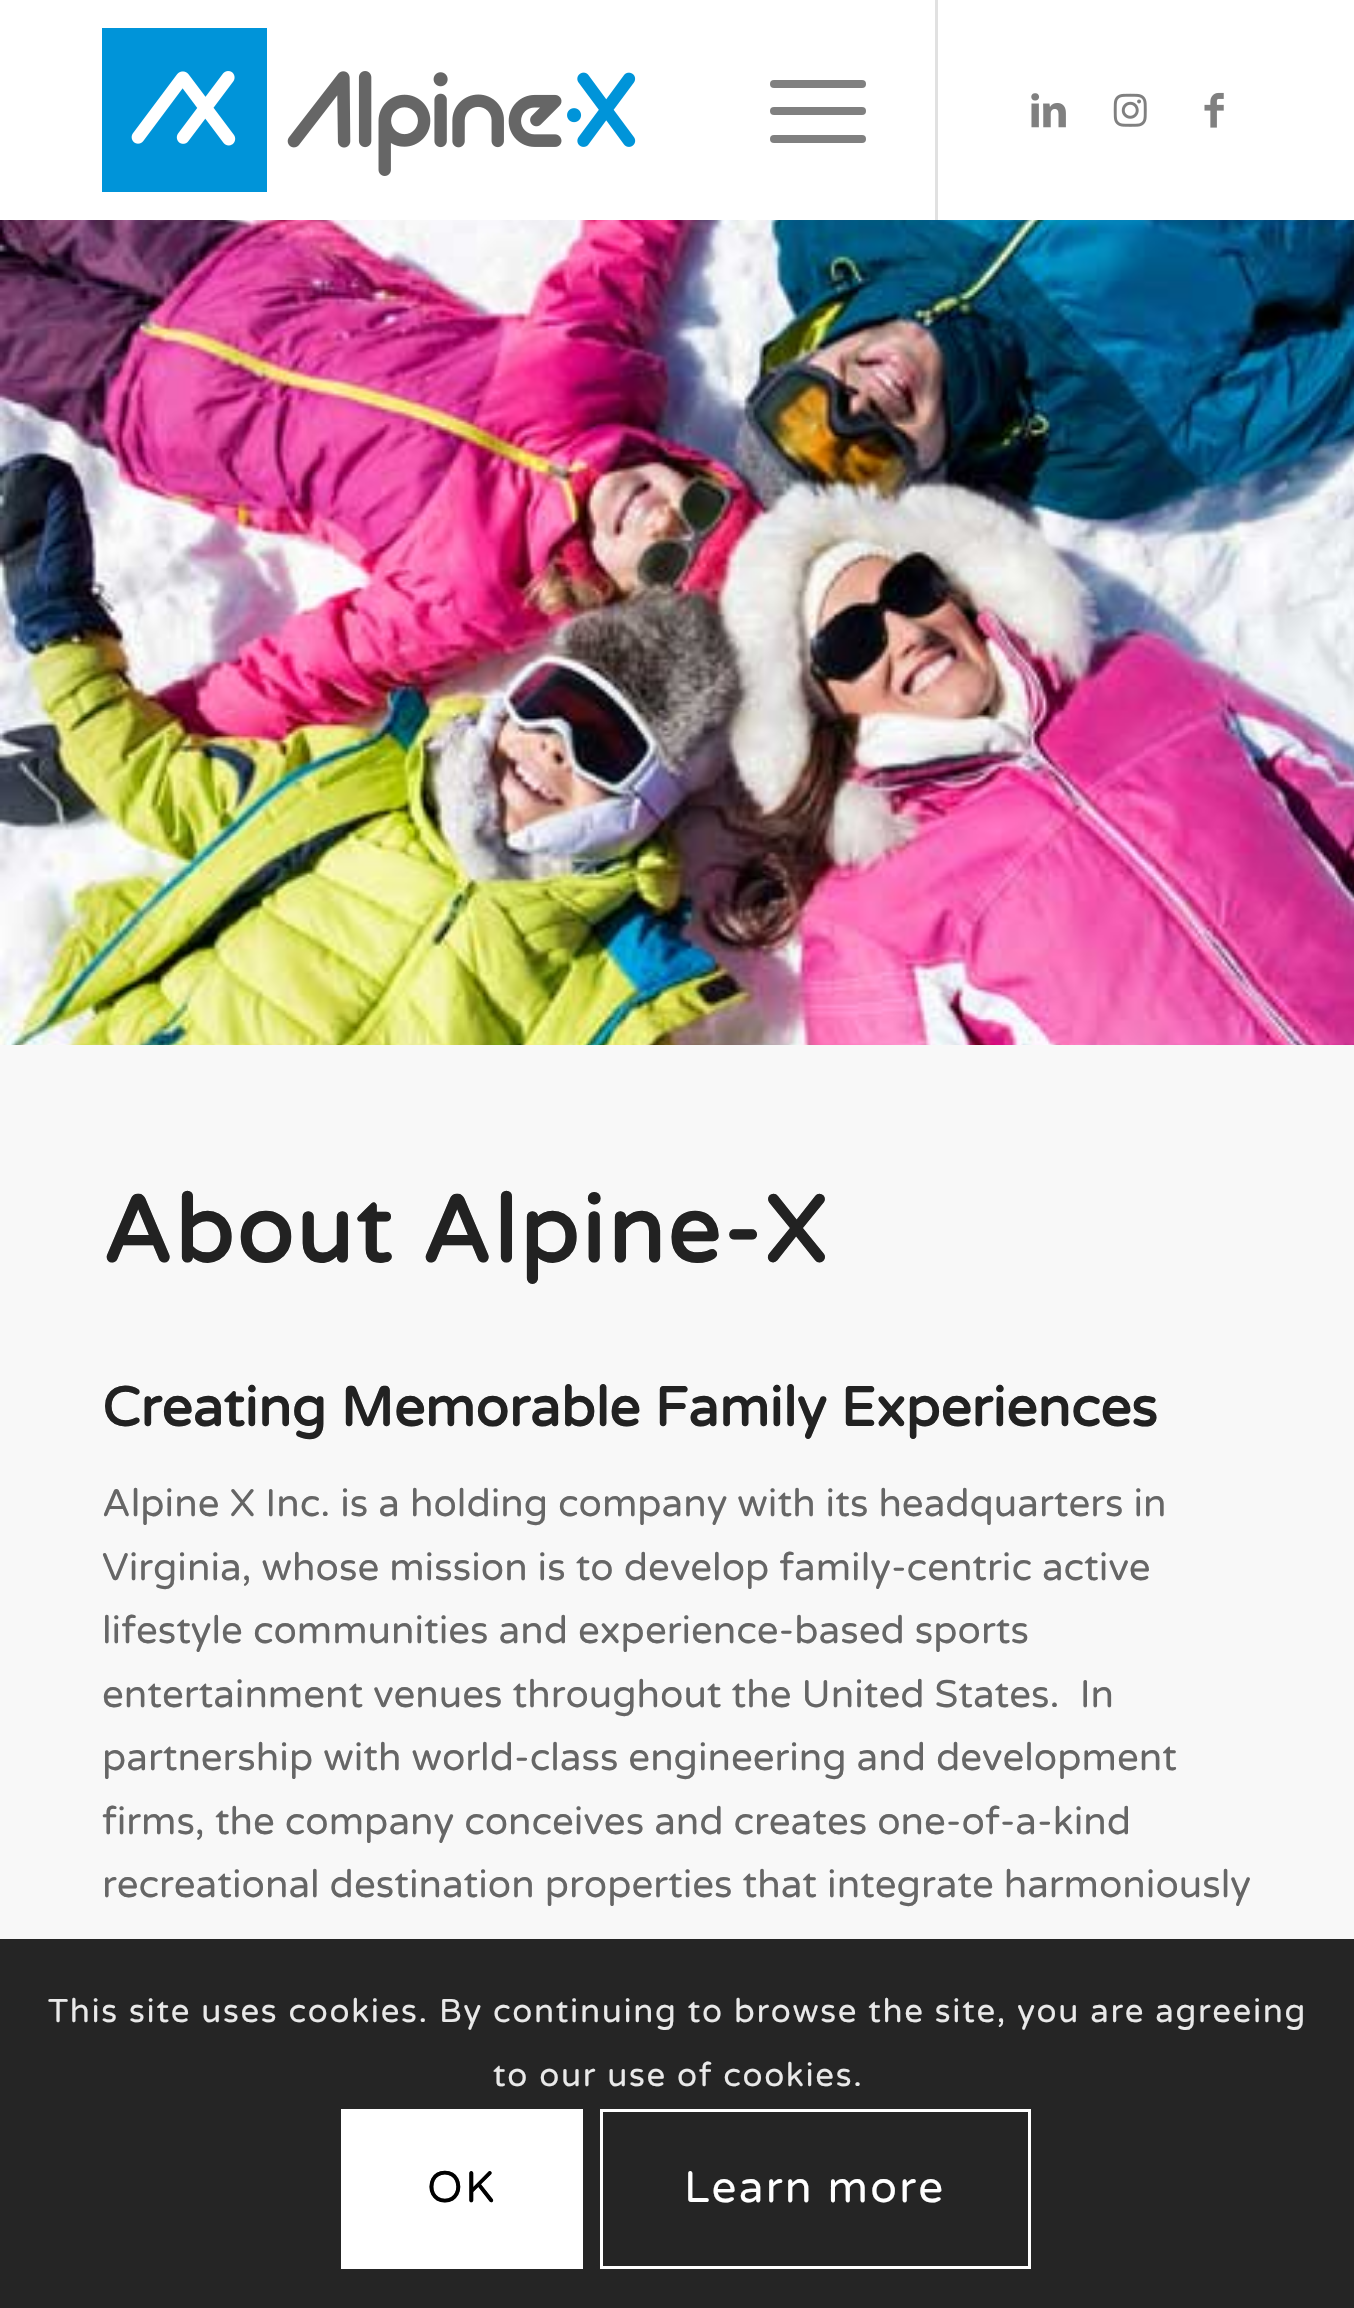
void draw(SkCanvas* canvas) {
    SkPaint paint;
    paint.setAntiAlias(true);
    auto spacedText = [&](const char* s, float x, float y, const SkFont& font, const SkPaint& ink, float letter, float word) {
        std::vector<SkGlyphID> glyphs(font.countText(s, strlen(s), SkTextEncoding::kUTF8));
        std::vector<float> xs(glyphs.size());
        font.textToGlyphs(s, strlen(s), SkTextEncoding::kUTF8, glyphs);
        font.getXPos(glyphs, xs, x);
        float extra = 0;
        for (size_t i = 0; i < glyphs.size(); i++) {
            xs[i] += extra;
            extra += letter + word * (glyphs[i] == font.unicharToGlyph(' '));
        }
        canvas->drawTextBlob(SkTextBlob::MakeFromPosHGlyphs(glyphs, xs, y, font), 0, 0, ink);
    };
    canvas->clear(0xFFF8F8F8);
    paint.setColor(0xFFFFFFFF);
    canvas->drawRect(SkRect::MakeXYWH(0, 0, 1354, 220), paint);
    canvas->drawImageRect(SkImages::DeferredFromEncodedData(SkData::MakeFromFileName("img1.png")), SkRect::MakeXYWH(102, 28, 534, 164), SkSamplingOptions());
    paint.setColor(0xFFE1E1E1);
    canvas->drawRect(SkRect::MakeXYWH(935, 0, 3, 220), paint);
    paint.setColor(0xFF808080);
    canvas->drawRoundRect(SkRect::MakeXYWH(770, 107, 96, 8), 4, 4, paint);
    canvas->drawRoundRect(SkRect::MakeXYWH(770, 80, 96, 8), 4, 4, paint);
    canvas->drawRoundRect(SkRect::MakeXYWH(770, 135, 96, 8), 4, 4, paint);
    canvas->drawImageRect(SkImages::DeferredFromEncodedData(SkData::MakeFromFileName("img2.png")), SkRect::MakeXYWH(1031, 93, 35, 35), SkSamplingOptions());
    canvas->drawImageRect(SkImages::DeferredFromEncodedData(SkData::MakeFromFileName("img3.png")), SkRect::MakeXYWH(1113, 93, 34, 34), SkSamplingOptions());
    canvas->drawImageRect(SkImages::DeferredFromEncodedData(SkData::MakeFromFileName("img4.png")), SkRect::MakeXYWH(1204, 92, 20, 36), SkSamplingOptions());
    canvas->drawImageRect(SkImages::DeferredFromEncodedData(SkData::MakeFromFileName("img5.png")), SkRect::MakeXYWH(0, 220, 1354, 825), SkSamplingOptions());
    SkFont font1(fontMgr->matchFamilyStyle("Varela Round", SkFontStyle::Bold()), 93.5f);
    font1.setSubpixel(true);
    paint.setColor(0xFF222222);
    spacedText("About Alpine-X", 102, 1262, font1, paint, 2.75f, 0);
    SkFont font2(fontMgr->matchFamilyStyle("Varela Round", SkFontStyle::Bold()), 55);
    font2.setSubpixel(true);
    canvas->drawString("Creating Memorable Family Experiences", 102, 1426, font2, paint);
    SkFont font3(fontMgr->matchFamilyStyle("Varela Round", SkFontStyle::Normal()), 38.5f);
    font3.setSubpixel(true);
    paint.setColor(0xFF666666);
    canvas->drawString("Alpine X Inc. is a holding company with its headquarters in", 102, 1516, font3, paint);
    canvas->drawString("Virginia, whose mission is to develop family-centric active", 102, 1580, font3, paint);
    canvas->drawString("lifestyle communities and experience-based sports", 102, 1643, font3, paint);
    canvas->drawString("entertainment venues throughout the United States.  In", 102, 1707, font3, paint);
    canvas->drawString("partnership with world-class engineering and development", 102, 1770, font3, paint);
    canvas->drawString("firms, the company conceives and creates one-of-a-kind", 102, 1834, font3, paint);
    canvas->drawString("recreational destination properties that integrate harmoniously", 102, 1897, font3, paint);
    paint.setColor(0xD9000000);
    canvas->drawRect(SkRect::MakeXYWH(0, 1939, 1354, 369), paint);
    SkFont font4(fontMgr->matchFamilyStyle("Varela Round", SkFontStyle::Normal()), 33);
    font4.setSubpixel(true);
    paint.setColor(0xFFE9E9E9);
    spacedText("This site uses cookies. By continuing to browse the site, you are agreeing", 48, 2022, font4, paint, 1.65f, 0);
    spacedText("to our use of cookies.", 493, 2086, font4, paint, 1.65f, 0);
    paint.setColor(0xFFFFFFFF);
    canvas->drawRect(SkRect::MakeXYWH(341, 2109, 242, 160), paint);
    SkFont font5(fontMgr->matchFamilyStyle("Varela Round", SkFontStyle::Normal()), 44);
    font5.setSubpixel(true);
    paint.setColor(0xFF000000);
    spacedText("OK", 427, 2202, font5, paint, 2.25f, 0);
    paint.setStyle(SkPaint::kStroke_Style);
    paint.setStrokeWidth(3);
    paint.setColor(0xFFFFFFFF);
    canvas->drawRect(SkRect::MakeXYWH(601.5f, 2110.5f, 428, 157), paint);
    paint.setStyle(SkPaint::kFill_Style);
    spacedText("Learn more", 684, 2202, font5, paint, 2.25f, 0);
}
